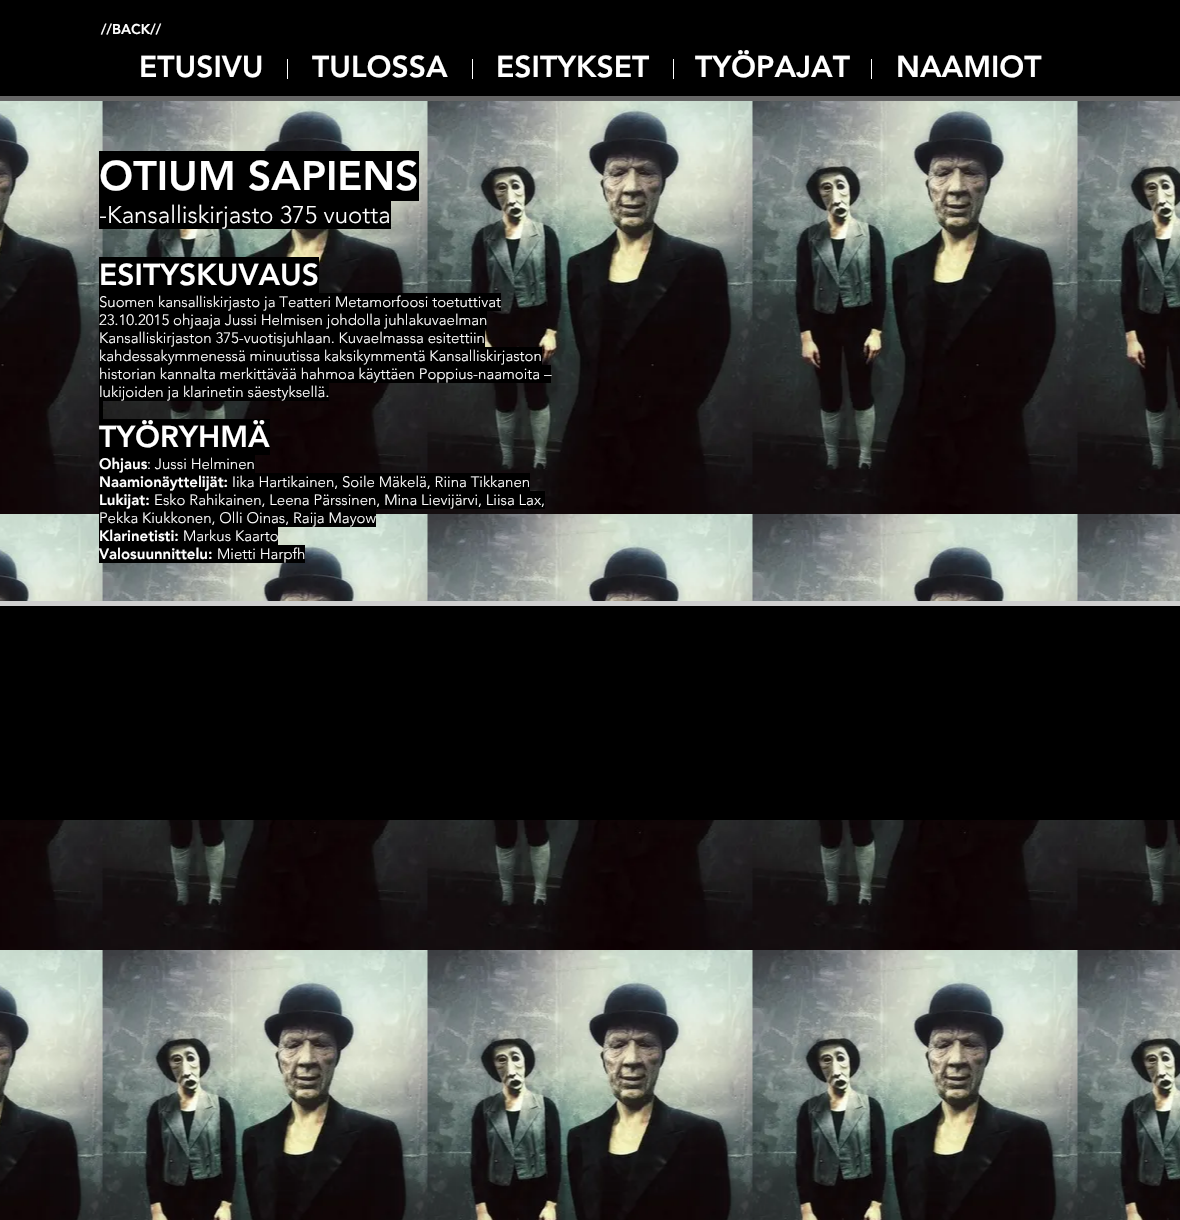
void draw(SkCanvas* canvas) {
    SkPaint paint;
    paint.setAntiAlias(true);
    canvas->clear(0xFFFFFFFF);
    paint.setColor(0xFF000000);
    canvas->drawRect(SkRect::MakeXYWH(0, 0, 1180, 96), paint);
    SkFont font1(fontMgr->matchFamilyStyle("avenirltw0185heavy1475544", SkFontStyle(900, SkFontStyle::kNormal_Width, SkFontStyle::kUpright_Slant)), 14);
    font1.setSubpixel(true);
    paint.setColor(0xFFFFFFFF);
    canvas->drawString("//BACK//", 101, 34, font1, paint);
    canvas->drawImageRect(SkImages::DeferredFromEncodedData(SkData::MakeFromFileName("img1.png")), SkRect::MakeXYWH(0, 101, 1180, 1119), SkSamplingOptions());
    paint.setColor(0xFF000000);
    canvas->drawRect(SkRect::MakeXYWH(99, 151, 320, 50), paint);
    SkFont font2(fontMgr->matchFamilyStyle("avenirltw0185heavy1475544", SkFontStyle(900, SkFontStyle::kNormal_Width, SkFontStyle::kUpright_Slant)), 41);
    font2.setSubpixel(true);
    paint.setColor(0xFFFFFFFF);
    canvas->drawString("OTIUM SAPIENS", 99, 190, font2, paint);
    paint.setColor(0xFF000000);
    canvas->drawRect(SkRect::MakeXYWH(99, 201, 292, 28), paint);
    SkFont font3(fontMgr->matchFamilyStyle("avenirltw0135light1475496", SkFontStyle(300, SkFontStyle::kNormal_Width, SkFontStyle::kUpright_Slant)), 24);
    font3.setSubpixel(true);
    paint.setColor(0xFFFFFFFF);
    canvas->drawString("-Kansalliskirjasto 375 vuotta", 99, 223, font3, paint);
    paint.setColor(0xFF000000);
    canvas->drawRect(SkRect::MakeXYWH(99, 257, 220, 36), paint);
    SkFont font4(fontMgr->matchFamilyStyle("avenirltw0185heavy1475544", SkFontStyle(900, SkFontStyle::kNormal_Width, SkFontStyle::kUpright_Slant)), 30);
    font4.setSubpixel(true);
    paint.setColor(0xFFFFFFFF);
    canvas->drawString("ESITYSKUVAUS", 99, 285, font4, paint);
    paint.setColor(0xFF000000);
    canvas->drawRect(SkRect::MakeXYWH(99, 293, 402, 18), paint);
    SkFont font5(fontMgr->matchFamilyStyle("avenirltw0135light1475496", SkFontStyle(300, SkFontStyle::kNormal_Width, SkFontStyle::kUpright_Slant)), 15);
    font5.setSubpixel(true);
    paint.setColor(0xFFFFFFFF);
    canvas->drawString("Suomen kansalliskirjasto ja Teatteri Metamorfoosi toetuttivat", 99, 307, font5, paint);
    paint.setColor(0xFF000000);
    canvas->drawRect(SkRect::MakeXYWH(99, 311, 388, 18), paint);
    paint.setColor(0xFFFFFFFF);
    canvas->drawString("23.10.2015 ohjaaja Jussi Helmisen johdolla juhlakuvaelman", 99, 325, font5, paint);
    paint.setColor(0xFF000000);
    canvas->drawRect(SkRect::MakeXYWH(99, 329, 386, 18), paint);
    paint.setColor(0xFFFFFFFF);
    canvas->drawString("Kansalliskirjaston 375-vuotisjuhlaan. Kuvaelmassa esitettiin", 99, 343, font5, paint);
    paint.setColor(0xFF000000);
    canvas->drawRect(SkRect::MakeXYWH(99, 347, 443, 18), paint);
    paint.setColor(0xFFFFFFFF);
    canvas->drawString("kahdessakymmenessä minuutissa kaksikymmentä Kansalliskirjaston", 99, 361, font5, paint);
    paint.setColor(0xFF000000);
    canvas->drawRect(SkRect::MakeXYWH(99, 365, 452, 18), paint);
    paint.setColor(0xFFFFFFFF);
    canvas->drawString("historian kannalta merkittävää hahmoa käyttäen Poppius-naamoita –", 99, 379, font5, paint);
    paint.setColor(0xFF000000);
    canvas->drawRect(SkRect::MakeXYWH(99, 383, 230, 18), paint);
    paint.setColor(0xFFFFFFFF);
    canvas->drawString("lukijoiden ja klarinetin säestyksellä.", 99, 397, font5, paint);
    paint.setColor(0xFF000000);
    canvas->drawRect(SkRect::MakeXYWH(99, 401, 4, 18), paint);
    canvas->drawRect(SkRect::MakeXYWH(99, 419, 171, 36), paint);
    paint.setColor(0xFFFFFFFF);
    canvas->drawString("TYÖRYHMÄ", 99, 447, font4, paint);
    paint.setColor(0xFF000000);
    canvas->drawRect(SkRect::MakeXYWH(99, 455, 156, 18), paint);
    SkFont font6(fontMgr->matchFamilyStyle("avenirltw0185heavy1475544", SkFontStyle(900, SkFontStyle::kNormal_Width, SkFontStyle::kUpright_Slant)), 15);
    font6.setSubpixel(true);
    paint.setColor(0xFFFFFFFF);
    canvas->drawString("Ohjaus", 99, 469, font6, paint);
    canvas->drawString(": Jussi Helminen", 147, 469, font5, paint);
    paint.setColor(0xFF000000);
    canvas->drawRect(SkRect::MakeXYWH(99, 473, 431, 18), paint);
    paint.setColor(0xFFFFFFFF);
    canvas->drawString("Naamionäyttelijät:", 99, 487, font6, paint);
    canvas->drawString("Iika Hartikainen, Soile Mäkelä, Riina Tikkanen", 232, 487, font5, paint);
    paint.setColor(0xFF000000);
    canvas->drawRect(SkRect::MakeXYWH(99, 491, 446, 18), paint);
    paint.setColor(0xFFFFFFFF);
    canvas->drawString("Lukijat:", 99, 505, font6, paint);
    canvas->drawString("Esko Rahikainen, Leena Pärssinen, Mina Lievijärvi, Liisa Lax,", 154, 505, font5, paint);
    paint.setColor(0xFF000000);
    canvas->drawRect(SkRect::MakeXYWH(99, 509, 277, 18), paint);
    paint.setColor(0xFFFFFFFF);
    canvas->drawString("Pekka Kiukkonen, Olli Oinas, Raija Mayow", 99, 523, font5, paint);
    paint.setColor(0xFF000000);
    canvas->drawRect(SkRect::MakeXYWH(99, 527, 179, 18), paint);
    paint.setColor(0xFFFFFFFF);
    canvas->drawString("Klarinetisti:", 99, 541, font6, paint);
    canvas->drawString("Markus Kaarto", 183, 541, font5, paint);
    paint.setColor(0xFF000000);
    canvas->drawRect(SkRect::MakeXYWH(99, 545, 206, 18), paint);
    paint.setColor(0xFFFFFFFF);
    canvas->drawString("Valosuunnittelu:", 99, 559, font6, paint);
    canvas->drawString("Mietti Harpfh", 217, 559, font5, paint);
    paint.setColor(0xFF666666);
    canvas->drawRect(SkRect::MakeXYWH(0, 96, 1180, 5), paint);
    paint.setColor(0xFFFFFFFF);
    canvas->drawString("ETUSIVU", 139, 77, font4, paint);
    canvas->drawRect(SkRect::MakeXYWH(287, 59, 1, 20), paint);
    canvas->drawString("TULOSSA", 312, 77, font4, paint);
    canvas->drawRect(SkRect::MakeXYWH(472, 59, 1, 20), paint);
    canvas->drawString("ESITYKSET", 496, 77, font4, paint);
    canvas->drawRect(SkRect::MakeXYWH(673, 59, 1, 20), paint);
    canvas->drawString("TYÖPAJAT", 695, 77, font4, paint);
    canvas->drawRect(SkRect::MakeXYWH(871, 59, 1, 20), paint);
    canvas->drawString("NAAMIOT", 896, 77, font4, paint);
    paint.setColor(0xFF000000);
    canvas->drawRect(SkRect::MakeXYWH(0, 606, 1180, 214), paint);
    paint.setColor(0xFFCFCFCF);
    canvas->drawRect(SkRect::MakeXYWH(0, 601, 1180, 5), paint);
}
